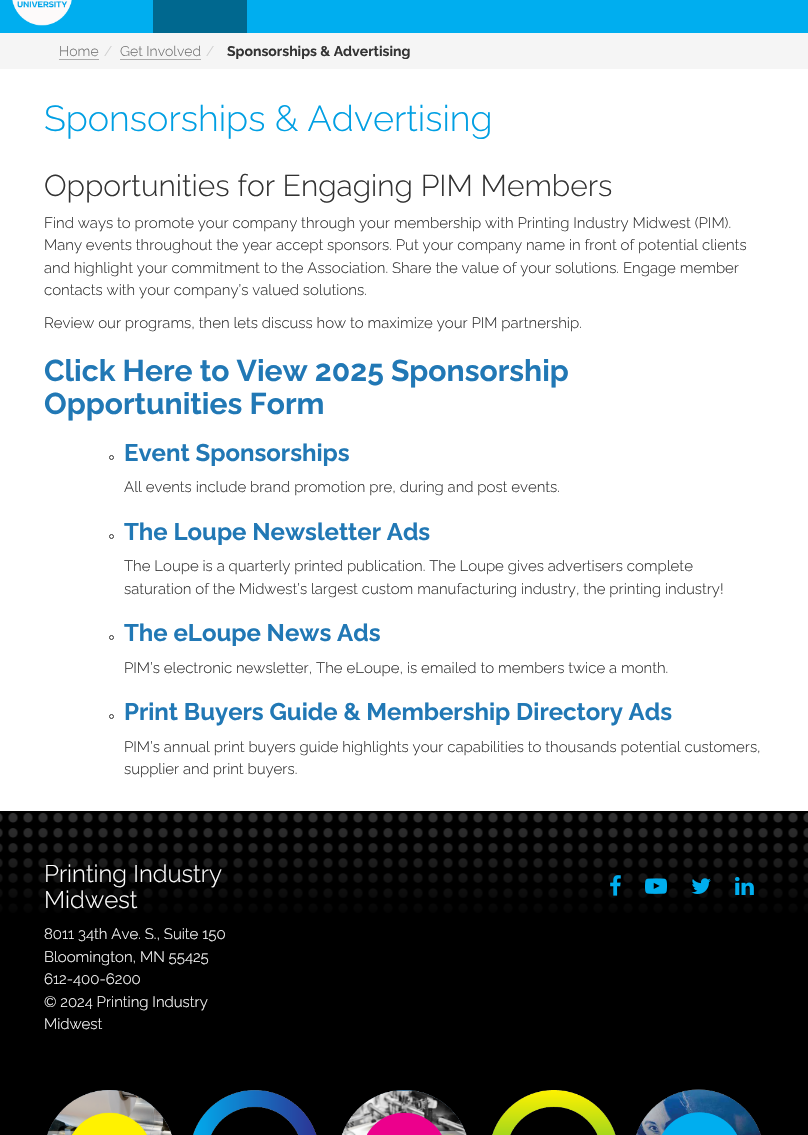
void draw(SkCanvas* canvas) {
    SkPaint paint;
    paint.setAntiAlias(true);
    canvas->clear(0xFFFFFFFF);
    paint.setColor(0xFF00AEEF);
    canvas->drawRect(SkRect::MakeXYWH(0, 0, 808, 33), paint);
    canvas->drawImageRect(SkImages::DeferredFromEncodedData(SkData::MakeFromFileName("img1.png")), SkRect::MakeXYWH(12, 0, 60, 26), SkSamplingOptions());
    paint.setColor(0xFF00688F);
    canvas->drawRect(SkRect::MakeXYWH(153, 0, 94, 33), paint);
    paint.setColor(0xFFF5F5F5);
    canvas->drawRect(SkRect::MakeXYWH(0, 33, 808, 36), paint);
    SkFont font1(fontMgr->matchFamilyStyle("Raleway", SkFontStyle(300, SkFontStyle::kNormal_Width, SkFontStyle::kUpright_Slant)), 14);
    font1.setSubpixel(true);
    paint.setColor(0xFF707070);
    canvas->drawString("Home", 59, 56, font1, paint);
    paint.setColor(0xFFACACAC);
    canvas->drawRect(SkRect::MakeXYWH(59, 59, 40, 1), paint);
    paint.setColor(0xFFCCCCCC);
    canvas->drawString("/", 104, 56, font1, paint);
    paint.setColor(0xFF707070);
    canvas->drawString("Get Involved", 120, 56, font1, paint);
    paint.setColor(0xFFACACAC);
    canvas->drawRect(SkRect::MakeXYWH(120, 59, 81, 1), paint);
    paint.setColor(0xFFCCCCCC);
    canvas->drawString("/", 206, 56, font1, paint);
    SkFont font2(fontMgr->matchFamilyStyle("Raleway", SkFontStyle::Bold()), 14);
    font2.setSubpixel(true);
    paint.setColor(0xFF333333);
    canvas->drawString("Sponsorships & Advertising", 227, 56, font2, paint);
    SkFont font3(fontMgr->matchFamilyStyle("Raleway", SkFontStyle(300, SkFontStyle::kNormal_Width, SkFontStyle::kUpright_Slant)), 36);
    font3.setSubpixel(true);
    paint.setColor(0xFF009FE3);
    canvas->drawString("Sponsorships & Advertising", 44, 131, font3, paint);
    SkFont font4(fontMgr->matchFamilyStyle("Raleway", SkFontStyle(300, SkFontStyle::kNormal_Width, SkFontStyle::kUpright_Slant)), 30);
    font4.setSubpixel(true);
    paint.setColor(0xFF333333);
    canvas->drawString("Opportunities for Engaging PIM Members", 44, 196, font4, paint);
    SkFont font5(fontMgr->matchFamilyStyle("Raleway", SkFontStyle(300, SkFontStyle::kNormal_Width, SkFontStyle::kUpright_Slant)), 15);
    font5.setSubpixel(true);
    canvas->drawString("Find ways to promote your company through your membership with Printing Industry Midwest (PIM).", 44, 228, font5, paint);
    canvas->drawString("Many events throughout the year accept sponsors. Put your company name in front of potential clients", 44, 250, font5, paint);
    canvas->drawString("and highlight your commitment to the Association. Share the value of your solutions. Engage member", 44, 273, font5, paint);
    canvas->drawString("contacts with your company’s valued solutions.", 44, 295, font5, paint);
    canvas->drawString("Review our programs, then lets discuss how to maximize your PIM partnership.", 44, 328, font5, paint);
    SkFont font6(fontMgr->matchFamilyStyle("Raleway", SkFontStyle::Bold()), 30);
    font6.setSubpixel(true);
    paint.setColor(0xFF2178B5);
    canvas->drawString("Click Here to View 2025 Sponsorship", 44, 381, font6, paint);
    canvas->drawString("Opportunities Form", 44, 414, font6, paint);
    paint.setStyle(SkPaint::kStroke_Style);
    paint.setStrokeWidth(1);
    paint.setColor(0xFF333333);
    canvas->drawCircle(111.5f, 457.5f, 2, paint);
    SkFont font7(fontMgr->matchFamilyStyle("Raleway", SkFontStyle::Bold()), 24);
    font7.setSubpixel(true);
    paint.setStyle(SkPaint::kFill_Style);
    paint.setColor(0xFF2178B5);
    canvas->drawString("Event Sponsorships", 124, 461, font7, paint);
    paint.setColor(0xFF333333);
    canvas->drawString("All events include brand promotion pre, during and post events.", 124, 492, font5, paint);
    paint.setStyle(SkPaint::kStroke_Style);
    canvas->drawCircle(111.5f, 536.5f, 2, paint);
    paint.setStyle(SkPaint::kFill_Style);
    paint.setColor(0xFF2178B5);
    canvas->drawString("The Loupe Newsletter Ads", 124, 540, font7, paint);
    paint.setColor(0xFF333333);
    canvas->drawString("The Loupe is a quarterly printed publication. The Loupe gives advertisers complete", 124, 571, font5, paint);
    canvas->drawString("saturation of the Midwest’s largest custom manufacturing industry, the printing industry!", 124, 594, font5, paint);
    paint.setStyle(SkPaint::kStroke_Style);
    canvas->drawCircle(111.5f, 637.5f, 2, paint);
    paint.setStyle(SkPaint::kFill_Style);
    paint.setColor(0xFF2178B5);
    canvas->drawString("The eLoupe News Ads", 124, 641, font7, paint);
    paint.setColor(0xFF333333);
    canvas->drawString("PIM’s electronic newsletter, The eLoupe, is emailed to members twice a month.", 124, 673, font5, paint);
    paint.setStyle(SkPaint::kStroke_Style);
    canvas->drawCircle(111.5f, 716.5f, 2, paint);
    paint.setStyle(SkPaint::kFill_Style);
    paint.setColor(0xFF2178B5);
    canvas->drawString("Print Buyers Guide & Membership Directory Ads", 124, 720, font7, paint);
    paint.setColor(0xFF333333);
    canvas->drawString("PIM’s annual print buyers guide highlights your capabilities to thousands potential customers,", 124, 752, font5, paint);
    canvas->drawString("supplier and print buyers.", 124, 774, font5, paint);
    paint.setColor(0xFF000000);
    canvas->drawRect(SkRect::MakeXYWH(0, 811, 808, 324), paint);
    canvas->drawImageRect(SkImages::DeferredFromEncodedData(SkData::MakeFromFileName("img2.png")), SkRect::MakeXYWH(0, 813, 808, 100), SkSamplingOptions());
    SkFont font8(fontMgr->matchFamilyStyle("Raleway", SkFontStyle(300, SkFontStyle::kNormal_Width, SkFontStyle::kUpright_Slant)), 24);
    font8.setSubpixel(true);
    paint.setColor(0xFFFFFFFF);
    canvas->drawString("Printing Industry", 44, 882, font8, paint);
    canvas->drawString("Midwest", 44, 908, font8, paint);
    canvas->drawString("8011 34th Ave. S., Suite 150", 44, 939, font5, paint);
    canvas->drawString("Bloomington, MN 55425", 44, 962, font5, paint);
    canvas->drawString("612-400-6200", 44, 984, font5, paint);
    canvas->drawString("© 2024 Printing Industry", 44, 1007, font5, paint);
    canvas->drawString("Midwest", 44, 1029, font5, paint);
    canvas->drawImageRect(SkImages::DeferredFromEncodedData(SkData::MakeFromFileName("img3.png")), SkRect::MakeXYWH(610, 875, 11, 21), SkSamplingOptions());
    canvas->drawImageRect(SkImages::DeferredFromEncodedData(SkData::MakeFromFileName("img4.png")), SkRect::MakeXYWH(645, 878, 22, 16), SkSamplingOptions());
    canvas->drawImageRect(SkImages::DeferredFromEncodedData(SkData::MakeFromFileName("img5.png")), SkRect::MakeXYWH(691, 878, 20, 16), SkSamplingOptions());
    canvas->drawImageRect(SkImages::DeferredFromEncodedData(SkData::MakeFromFileName("img6.png")), SkRect::MakeXYWH(735, 877, 19, 18), SkSamplingOptions());
    canvas->drawImageRect(SkImages::DeferredFromEncodedData(SkData::MakeFromFileName("img7.png")), SkRect::MakeXYWH(47, 1089, 714, 46), SkSamplingOptions());
}
